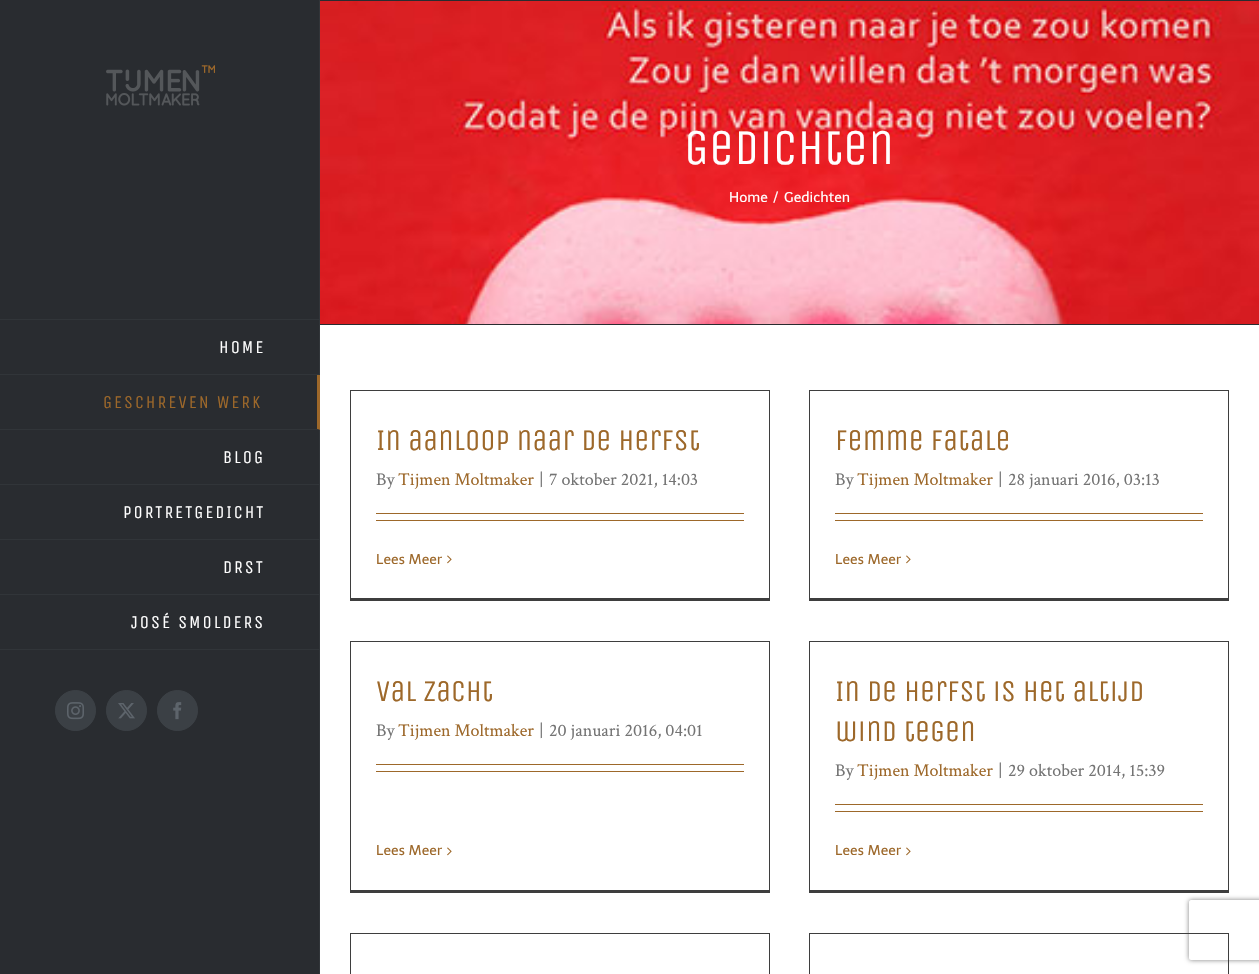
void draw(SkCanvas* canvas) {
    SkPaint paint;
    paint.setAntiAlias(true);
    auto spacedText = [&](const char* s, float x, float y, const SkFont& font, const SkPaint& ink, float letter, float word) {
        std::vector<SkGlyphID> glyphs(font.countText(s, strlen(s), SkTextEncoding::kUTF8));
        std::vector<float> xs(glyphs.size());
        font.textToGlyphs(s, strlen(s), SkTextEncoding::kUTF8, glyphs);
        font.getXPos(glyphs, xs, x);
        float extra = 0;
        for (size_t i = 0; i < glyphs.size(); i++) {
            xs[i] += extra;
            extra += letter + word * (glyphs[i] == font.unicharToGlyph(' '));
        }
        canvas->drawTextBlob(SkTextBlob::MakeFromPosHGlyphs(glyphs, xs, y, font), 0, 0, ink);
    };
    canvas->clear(0xFFFFFFFF);
    canvas->drawImageRect(SkImages::DeferredFromEncodedData(SkData::MakeFromFileName("img1.png")), SkRect::MakeXYWH(320, 1, 939, 323), SkSamplingOptions());
    paint.setColor(0xFF292C30);
    canvas->drawRect(SkRect::MakeXYWH(320, 0, 939, 1), paint);
    canvas->drawRect(SkRect::MakeXYWH(320, 324, 939, 1), paint);
    SkFont font1(fontMgr->matchFamilyStyle("Unica One", SkFontStyle::Normal()), 50);
    font1.setSubpixel(true);
    paint.setColor(0xFFFFFFFF);
    canvas->drawString("Gedichten", 684, 164, font1, paint);
    SkFont font2(fontMgr->matchFamilyStyle("Telex", SkFontStyle::Normal()), 14);
    font2.setSubpixel(true);
    canvas->drawString("Home", 729, 202, font2, paint);
    canvas->drawString("/", 773, 202, font2, paint);
    canvas->drawString("Gedichten", 784, 202, font2, paint);
    paint.setColor(0xFF292C30);
    canvas->drawRect(SkRect::MakeXYWH(0, 0, 319, 974), paint);
    paint.setColor(0xFF313539);
    canvas->drawRect(SkRect::MakeXYWH(319, 0, 1, 974), paint);
    canvas->drawImageRect(SkImages::DeferredFromEncodedData(SkData::MakeFromFileName("img2.png")), SkRect::MakeXYWH(106, 65, 109, 41), SkSamplingOptions());
    canvas->drawRect(SkRect::MakeXYWH(0, 319, 320, 1), paint);
    canvas->drawRect(SkRect::MakeXYWH(0, 374, 320, 1), paint);
    SkFont font3(fontMgr->matchFamilyStyle("Unica One", SkFontStyle::Normal()), 18);
    font3.setSubpixel(true);
    paint.setColor(0xFFFFFFFF);
    spacedText("HOME", 219, 353, font3, paint, 2, 0);
    paint.setColor(0xFF9D682A);
    canvas->drawPath(SkPathBuilder().moveTo(320, 375).lineTo(320, 430).lineTo(317, 429).lineTo(317, 375).close().detach(), paint);
    paint.setColor(0xFF313539);
    canvas->drawPath(SkPathBuilder().moveTo(320, 430).lineTo(0, 430).lineTo(0, 429).lineTo(317, 429).close().detach(), paint);
    paint.setColor(0xFF9D682A);
    spacedText("GESCHREVEN WERK", 103, 408, font3, paint, 2, 0);
    paint.setColor(0xFF313539);
    canvas->drawRect(SkRect::MakeXYWH(0, 484, 320, 1), paint);
    paint.setColor(0xFFFFFFFF);
    spacedText("BLOG", 223, 463, font3, paint, 2, 0);
    paint.setColor(0xFF313539);
    canvas->drawRect(SkRect::MakeXYWH(0, 539, 320, 1), paint);
    paint.setColor(0xFFFFFFFF);
    spacedText("PORTRETGEDICHT", 123, 518, font3, paint, 2, 0);
    paint.setColor(0xFF313539);
    canvas->drawRect(SkRect::MakeXYWH(0, 594, 320, 1), paint);
    paint.setColor(0xFFFFFFFF);
    spacedText("DRST", 223, 573, font3, paint, 2, 0);
    paint.setColor(0xFF313539);
    canvas->drawRect(SkRect::MakeXYWH(0, 649, 320, 1), paint);
    paint.setColor(0xFFFFFFFF);
    spacedText("JOSÉ SMOLDERS", 131, 628, font3, paint, 2, 0);
    paint.setColor(0xFF3B4045);
    canvas->drawCircle(75.5f, 710.5f, 20, paint);
    paint.setStyle(SkPaint::kStroke_Style);
    paint.setStrokeWidth(1);
    canvas->drawCircle(75.5f, 710.5f, 20, paint);
    canvas->drawImageRect(SkImages::DeferredFromEncodedData(SkData::MakeFromFileName("img3.png")), SkRect::MakeXYWH(67, 702, 17, 18), SkSamplingOptions());
    paint.setStyle(SkPaint::kFill_Style);
    canvas->drawCircle(126.5f, 710.5f, 20, paint);
    paint.setStyle(SkPaint::kStroke_Style);
    canvas->drawCircle(126.5f, 710.5f, 20, paint);
    canvas->drawImageRect(SkImages::DeferredFromEncodedData(SkData::MakeFromFileName("img4.png")), SkRect::MakeXYWH(118, 703, 17, 16), SkSamplingOptions());
    paint.setStyle(SkPaint::kFill_Style);
    canvas->drawCircle(177.5f, 710.5f, 20, paint);
    paint.setStyle(SkPaint::kStroke_Style);
    canvas->drawCircle(177.5f, 710.5f, 20, paint);
    canvas->drawImageRect(SkImages::DeferredFromEncodedData(SkData::MakeFromFileName("img5.png")), SkRect::MakeXYWH(173, 702, 9, 18), SkSamplingOptions());
    paint.setStyle(SkPaint::kFill_Style);
    paint.setColor(0xFF3E3E3E);
    canvas->drawRect(SkRect::MakeXYWH(350, 390, 420, 1), paint);
    canvas->drawRect(SkRect::MakeXYWH(769, 390, 1, 211), paint);
    canvas->drawRect(SkRect::MakeXYWH(350, 598, 420, 3), paint);
    canvas->drawRect(SkRect::MakeXYWH(350, 390, 1, 211), paint);
    SkFont font4(fontMgr->matchFamilyStyle("Unica One", SkFontStyle::Normal()), 30);
    font4.setSubpixel(true);
    paint.setColor(0xFF9D682A);
    canvas->drawString("In aanloop naar de herfst", 376, 450, font4, paint);
    SkFont font5(fontMgr->matchFamilyStyle("Crimson Text", SkFontStyle::Normal()), 18);
    font5.setSubpixel(true);
    paint.setColor(0xFF747474);
    canvas->drawString("By", 376, 485, font5, paint);
    paint.setColor(0xFF9D682A);
    canvas->drawString("Tijmen Moltmaker", 398, 485, font5, paint);
    paint.setColor(0xFF747474);
    canvas->drawString("|", 539, 485, font5, paint);
    canvas->drawString("7 oktober 2021, 14:03", 549, 485, font5, paint);
    paint.setColor(0xFF9D682A);
    canvas->drawRect(SkRect::MakeXYWH(376, 513, 368, 1), paint);
    canvas->drawRect(SkRect::MakeXYWH(376, 520, 368, 1), paint);
    canvas->drawString("Lees Meer", 376, 564, font2, paint);
    canvas->drawImageRect(SkImages::DeferredFromEncodedData(SkData::MakeFromFileName("img6.png")), SkRect::MakeXYWH(447, 555, 5, 9), SkSamplingOptions());
    paint.setColor(0xFF3E3E3E);
    canvas->drawRect(SkRect::MakeXYWH(809, 390, 420, 1), paint);
    canvas->drawRect(SkRect::MakeXYWH(1228, 390, 1, 211), paint);
    canvas->drawRect(SkRect::MakeXYWH(809, 598, 420, 3), paint);
    canvas->drawRect(SkRect::MakeXYWH(809, 390, 1, 211), paint);
    paint.setColor(0xFF9D682A);
    canvas->drawString("Femme fatale", 835, 450, font4, paint);
    paint.setColor(0xFF747474);
    canvas->drawString("By", 835, 485, font5, paint);
    paint.setColor(0xFF9D682A);
    canvas->drawString("Tijmen Moltmaker", 857, 485, font5, paint);
    paint.setColor(0xFF747474);
    canvas->drawString("|", 998, 485, font5, paint);
    canvas->drawString("28 januari 2016, 03:13", 1008, 485, font5, paint);
    paint.setColor(0xFF9D682A);
    canvas->drawRect(SkRect::MakeXYWH(835, 513, 368, 1), paint);
    canvas->drawRect(SkRect::MakeXYWH(835, 520, 368, 1), paint);
    canvas->drawString("Lees Meer", 835, 564, font2, paint);
    canvas->drawImageRect(SkImages::DeferredFromEncodedData(SkData::MakeFromFileName("img6.png")), SkRect::MakeXYWH(906, 555, 5, 9), SkSamplingOptions());
    paint.setColor(0xFF3E3E3E);
    canvas->drawRect(SkRect::MakeXYWH(350, 641, 420, 1), paint);
    canvas->drawRect(SkRect::MakeXYWH(769, 641, 1, 252), paint);
    canvas->drawRect(SkRect::MakeXYWH(350, 890, 420, 3), paint);
    canvas->drawRect(SkRect::MakeXYWH(350, 641, 1, 252), paint);
    paint.setColor(0xFF9D682A);
    canvas->drawString("Val zacht", 376, 701, font4, paint);
    paint.setColor(0xFF747474);
    canvas->drawString("By", 376, 736, font5, paint);
    paint.setColor(0xFF9D682A);
    canvas->drawString("Tijmen Moltmaker", 398, 736, font5, paint);
    paint.setColor(0xFF747474);
    canvas->drawString("|", 539, 736, font5, paint);
    canvas->drawString("20 januari 2016, 04:01", 549, 736, font5, paint);
    paint.setColor(0xFF9D682A);
    canvas->drawRect(SkRect::MakeXYWH(376, 764, 368, 1), paint);
    canvas->drawRect(SkRect::MakeXYWH(376, 771, 368, 1), paint);
    canvas->drawString("Lees Meer", 376, 855, font2, paint);
    canvas->drawImageRect(SkImages::DeferredFromEncodedData(SkData::MakeFromFileName("img6.png")), SkRect::MakeXYWH(447, 847, 5, 9), SkSamplingOptions());
    paint.setColor(0xFF3E3E3E);
    canvas->drawRect(SkRect::MakeXYWH(809, 641, 420, 1), paint);
    canvas->save();
    canvas->clipPath(SkPathBuilder(SkPathFillType::kEvenOdd).moveTo(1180, 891).lineTo(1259, 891).lineTo(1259, 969).lineTo(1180, 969).close().moveTo(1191, 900).lineTo(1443, 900).cubicTo(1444, 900, 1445, 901, 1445, 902).lineTo(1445, 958).cubicTo(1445, 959, 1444, 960, 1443, 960).lineTo(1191, 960).cubicTo(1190, 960, 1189, 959, 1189, 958).lineTo(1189, 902).cubicTo(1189, 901, 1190, 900, 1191, 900).close().detach(), true);
    paint.setColor(0xFF808080);
    paint.setMaskFilter(SkMaskFilter::MakeBlur(kNormal_SkBlurStyle, 2.5f));
    canvas->drawRoundRect(SkRect::MakeXYWH(1189, 900, 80, 60), 2, 2, paint);
    paint.setMaskFilter(nullptr);
    canvas->restore();
    paint.setColor(0xFF3E3E3E);
    canvas->drawRect(SkRect::MakeXYWH(1228, 641, 1, 252), paint);
    canvas->drawRect(SkRect::MakeXYWH(809, 890, 420, 3), paint);
    canvas->drawRect(SkRect::MakeXYWH(809, 641, 1, 252), paint);
    paint.setColor(0xFF9D682A);
    canvas->drawString("In de herfst is het altijd", 835, 701, font4, paint);
    canvas->drawString("wind tegen", 835, 741, font4, paint);
    paint.setColor(0xFF747474);
    canvas->drawString("By", 835, 776, font5, paint);
    paint.setColor(0xFF9D682A);
    canvas->drawString("Tijmen Moltmaker", 857, 776, font5, paint);
    paint.setColor(0xFF747474);
    canvas->drawString("|", 998, 776, font5, paint);
    canvas->drawString("29 oktober 2014, 15:39", 1008, 776, font5, paint);
    paint.setColor(0xFF9D682A);
    canvas->drawRect(SkRect::MakeXYWH(835, 804, 368, 1), paint);
    canvas->drawRect(SkRect::MakeXYWH(835, 811, 368, 1), paint);
    canvas->drawString("Lees Meer", 835, 855, font2, paint);
    canvas->drawImageRect(SkImages::DeferredFromEncodedData(SkData::MakeFromFileName("img6.png")), SkRect::MakeXYWH(906, 847, 5, 9), SkSamplingOptions());
    paint.setColor(0xFF3E3E3E);
    canvas->drawRect(SkRect::MakeXYWH(350, 933, 420, 1), paint);
    canvas->drawRect(SkRect::MakeXYWH(769, 933, 1, 41), paint);
    canvas->drawRect(SkRect::MakeXYWH(350, 933, 1, 41), paint);
    canvas->drawRect(SkRect::MakeXYWH(809, 933, 420, 1), paint);
    canvas->drawRect(SkRect::MakeXYWH(1228, 933, 1, 41), paint);
    canvas->drawRect(SkRect::MakeXYWH(809, 933, 1, 41), paint);
}
